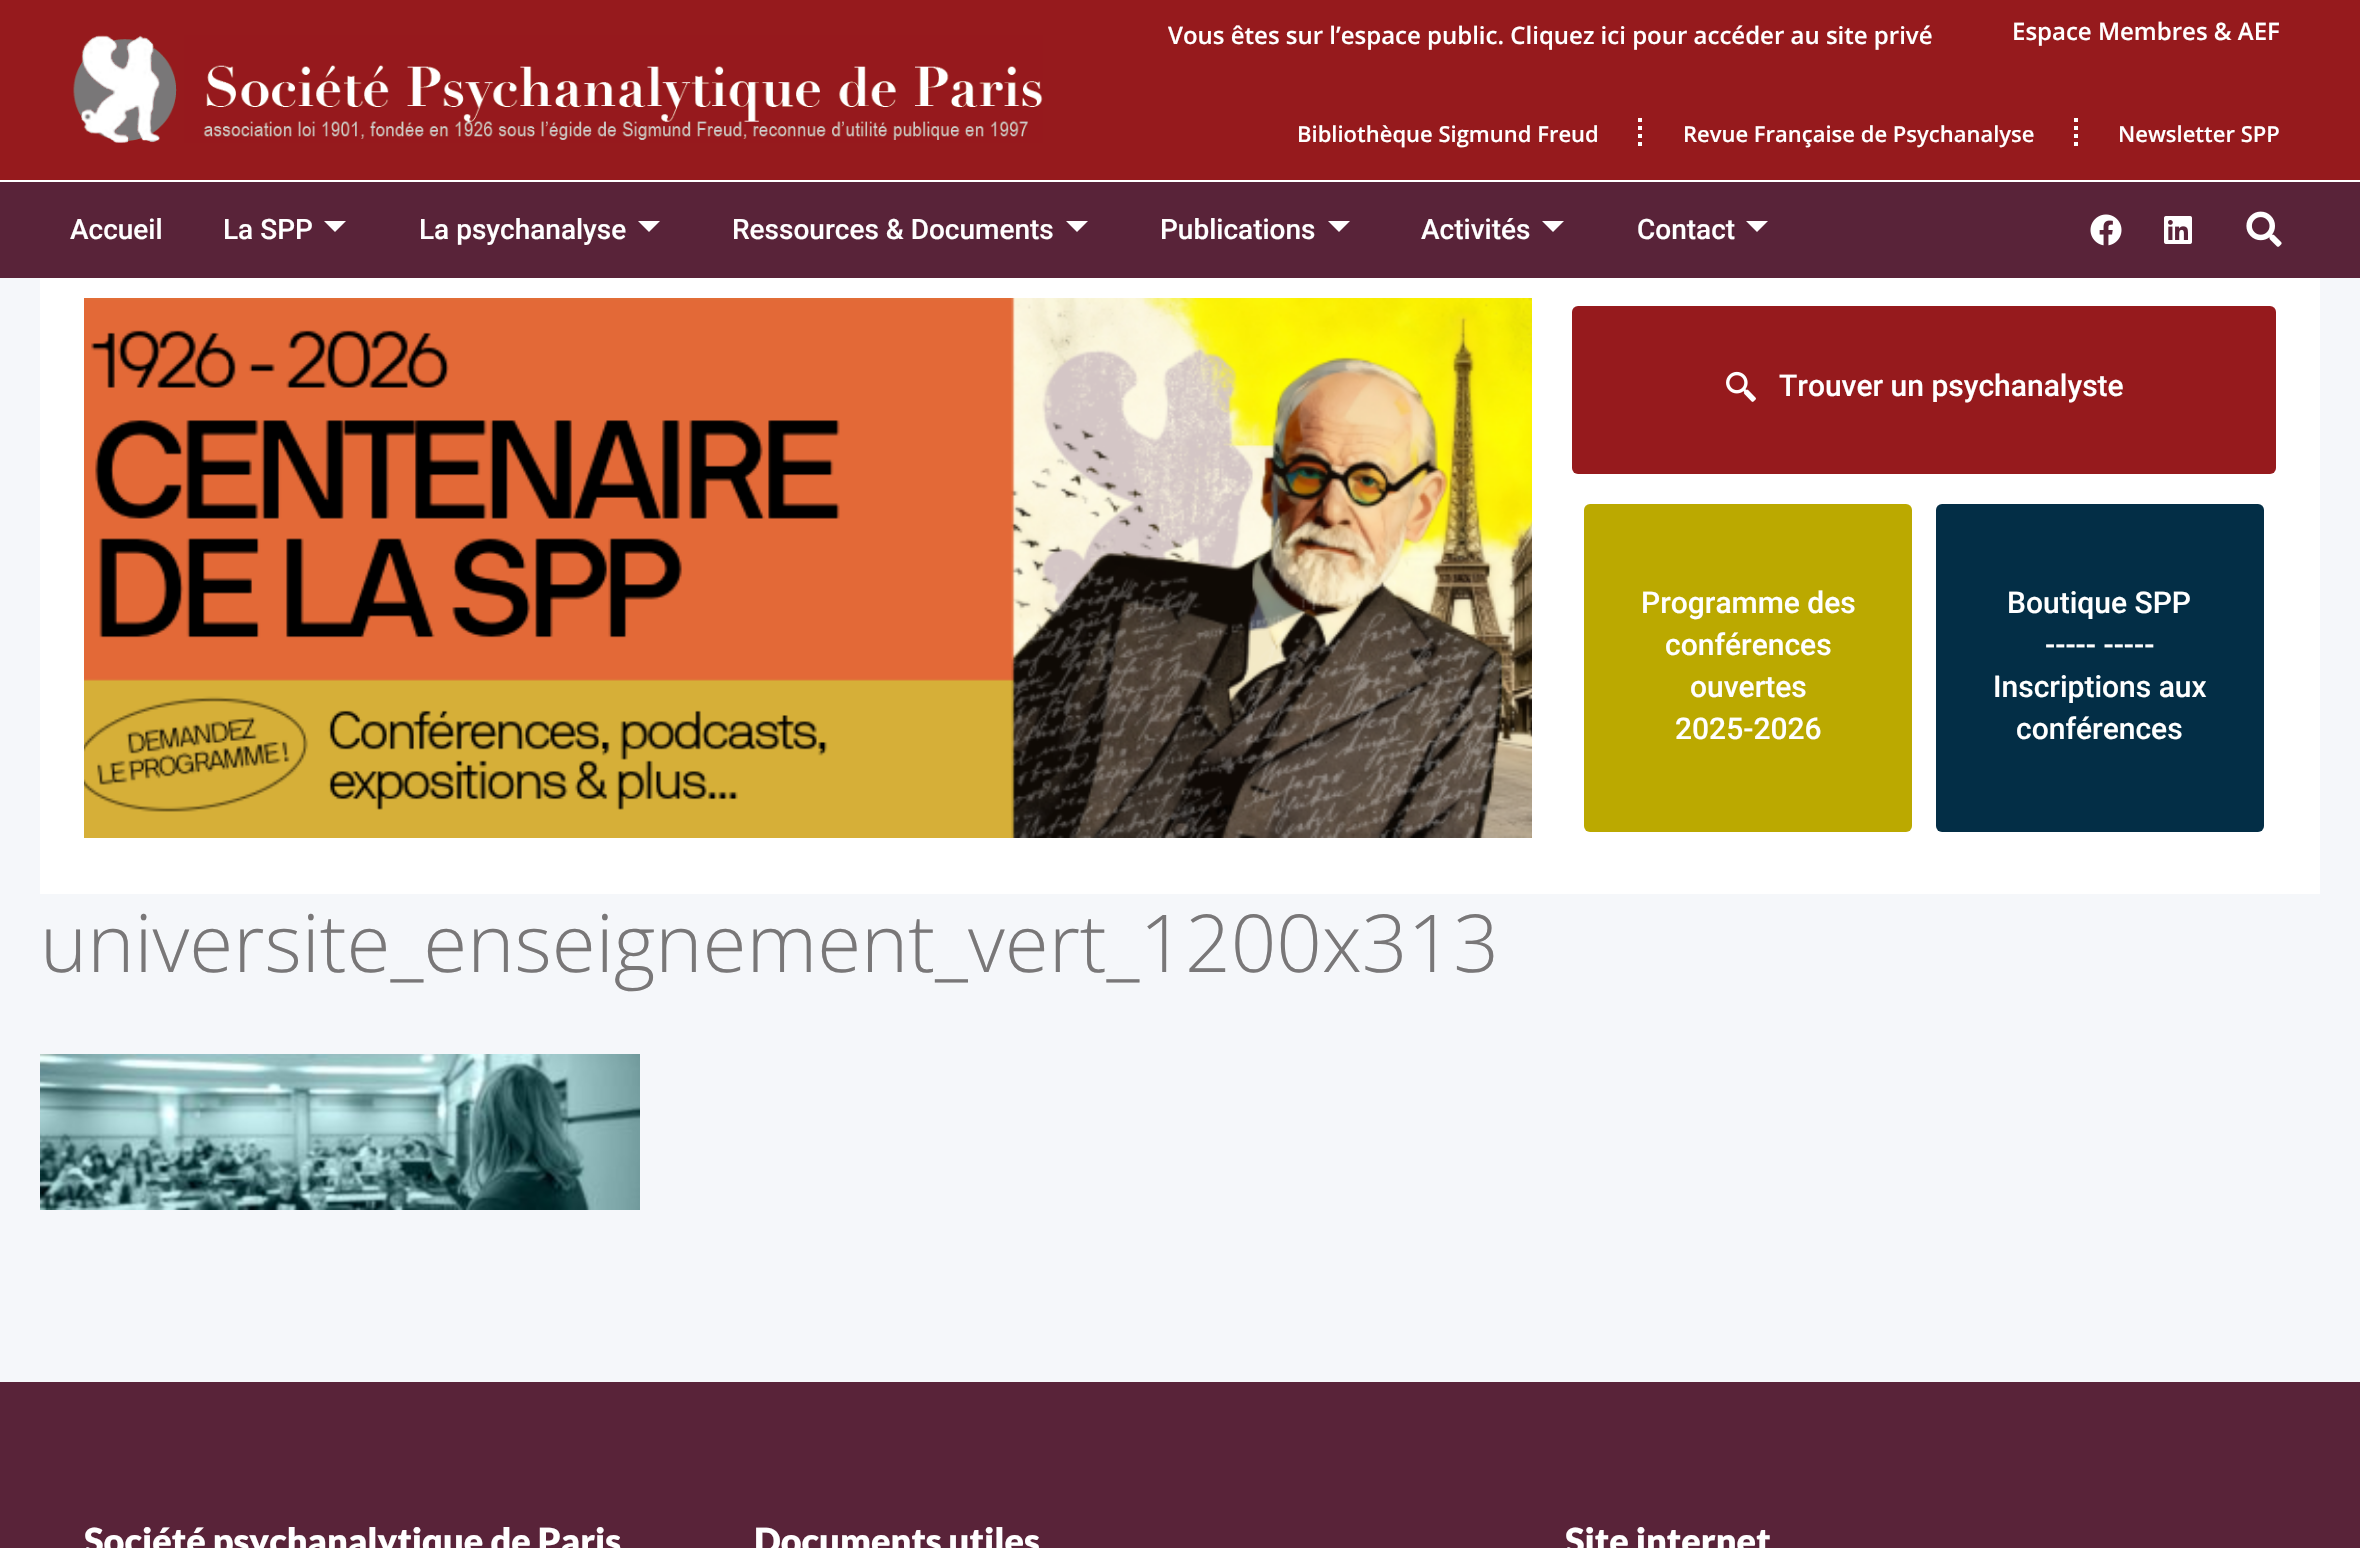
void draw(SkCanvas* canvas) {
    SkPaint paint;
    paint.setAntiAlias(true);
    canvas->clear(0xFFF5F7FA);
    paint.setColor(0xFF961A1D);
    canvas->drawRect(SkRect::MakeXYWH(0, 0, 2360, 180), paint);
    canvas->drawImageRect(SkImages::DeferredFromEncodedData(SkData::MakeFromFileName("img1.png")), SkRect::MakeXYWH(73, 35, 970, 108), SkSamplingOptions());
    SkFont font1(fontMgr->matchFamilyStyle("Open Sans", SkFontStyle(600, SkFontStyle::kNormal_Width, SkFontStyle::kUpright_Slant)), 24);
    font1.setSubpixel(true);
    paint.setColor(0xFFFFFFFF);
    canvas->drawString("Vous êtes sur l’espace public. Cliquez ici pour accéder au site privé", 1168, 44, font1, paint);
    canvas->drawString("Espace Membres & AEF", 2012, 40, font1, paint);
    SkFont font2(fontMgr->matchFamilyStyle("Open Sans", SkFontStyle(600, SkFontStyle::kNormal_Width, SkFontStyle::kUpright_Slant)), 22);
    font2.setSubpixel(true);
    canvas->drawString("Bibliothèque Sigmund Freud", 1297, 142, font2, paint);
    paint.setStyle(SkPaint::kStroke_Style);
    paint.setStrokeWidth(4);
    paint.setPathEffect(SkDashPathEffect::Make({{4, 4}}, 0));
    canvas->drawPath(SkPathBuilder().moveTo(1640, 118).lineTo(1640, 150).detach(), paint);
    paint.setPathEffect(nullptr);
    paint.setStyle(SkPaint::kFill_Style);
    canvas->drawString("Revue Française de Psychanalyse", 1683, 142, font2, paint);
    paint.setStyle(SkPaint::kStroke_Style);
    paint.setPathEffect(SkDashPathEffect::Make({{4, 4}}, 0));
    canvas->drawPath(SkPathBuilder().moveTo(2076, 118).lineTo(2076, 150).detach(), paint);
    paint.setPathEffect(nullptr);
    paint.setStyle(SkPaint::kFill_Style);
    canvas->drawString("Newsletter SPP", 2118, 142, font2, paint);
    paint.setColor(0xFF592339);
    canvas->drawRect(SkRect::MakeXYWH(0, 182, 2360, 96), paint);
    paint.setColor(0xFFFFFFFF);
    canvas->drawRect(SkRect::MakeXYWH(0, 180, 2360, 2), paint);
    SkFont font3(fontMgr->matchFamilyStyle("Roboto", SkFontStyle(500, SkFontStyle::kNormal_Width, SkFontStyle::kUpright_Slant)), 28);
    font3.setSubpixel(true);
    canvas->drawString("Accueil", 70, 239, font3, paint);
    canvas->drawString("La SPP", 223, 239, font3, paint);
    canvas->drawPath(SkPathBuilder().moveTo(324, 221).lineTo(346, 221).lineTo(335, 232).close().detach(), paint);
    canvas->drawString("La psychanalyse", 419, 239, font3, paint);
    canvas->drawPath(SkPathBuilder().moveTo(638, 221).lineTo(660, 221).lineTo(649, 232).close().detach(), paint);
    canvas->drawString("Ressources & Documents", 732, 239, font3, paint);
    canvas->drawPath(SkPathBuilder().moveTo(1066, 221).lineTo(1088, 221).lineTo(1077, 232).close().detach(), paint);
    canvas->drawString("Publications", 1160, 239, font3, paint);
    canvas->drawPath(SkPathBuilder().moveTo(1328, 221).lineTo(1350, 221).lineTo(1339, 232).close().detach(), paint);
    canvas->drawString("Activités", 1421, 239, font3, paint);
    canvas->drawPath(SkPathBuilder().moveTo(1542, 221).lineTo(1564, 221).lineTo(1553, 232).close().detach(), paint);
    canvas->drawString("Contact", 1637, 239, font3, paint);
    canvas->drawPath(SkPathBuilder().moveTo(1746, 221).lineTo(1768, 221).lineTo(1757, 232).close().detach(), paint);
    canvas->drawImageRect(SkImages::DeferredFromEncodedData(SkData::MakeFromFileName("img2.png")), SkRect::MakeXYWH(2090, 214, 32, 32), SkSamplingOptions());
    canvas->drawImageRect(SkImages::DeferredFromEncodedData(SkData::MakeFromFileName("img3.png")), SkRect::MakeXYWH(2164, 216, 28, 28), SkSamplingOptions());
    canvas->drawImageRect(SkImages::DeferredFromEncodedData(SkData::MakeFromFileName("img4.png")), SkRect::MakeXYWH(2246, 211, 36, 36), SkSamplingOptions());
    canvas->drawRect(SkRect::MakeXYWH(40, 278, 2280, 616), paint);
    canvas->drawImageRect(SkImages::DeferredFromEncodedData(SkData::MakeFromFileName("img5.png")), SkRect::MakeXYWH(84, 298, 1448, 540), SkSamplingOptions());
    paint.setColor(0xFF961A1D);
    canvas->drawRoundRect(SkRect::MakeXYWH(1572, 306, 704, 168), 6, 6, paint);
    canvas->drawImageRect(SkImages::DeferredFromEncodedData(SkData::MakeFromFileName("img6.png")), SkRect::MakeXYWH(1726, 371, 30, 31), SkSamplingOptions());
    SkFont font4(fontMgr->matchFamilyStyle("Roboto", SkFontStyle(500, SkFontStyle::kNormal_Width, SkFontStyle::kUpright_Slant)), 30);
    font4.setSubpixel(true);
    paint.setColor(0xFFFFFFFF);
    canvas->drawString("Trouver un psychanalyste", 1779, 396, font4, paint);
    paint.setColor(0xFFBBA900);
    canvas->drawRoundRect(SkRect::MakeXYWH(1584, 504, 328, 328), 6, 6, paint);
    paint.setColor(0xFFFFFFFF);
    canvas->drawString("Programme des", 1641, 613, font4, paint);
    canvas->drawString("conférences", 1665, 655, font4, paint);
    canvas->drawString("ouvertes", 1690, 697, font4, paint);
    canvas->drawString("2025-2026", 1675, 739, font4, paint);
    paint.setColor(0xFF032E46);
    canvas->drawRoundRect(SkRect::MakeXYWH(1936, 504, 328, 328), 6, 6, paint);
    paint.setColor(0xFFFFFFFF);
    canvas->drawString("Boutique SPP", 2007, 613, font4, paint);
    canvas->drawString("----- -----", 2045, 655, font4, paint);
    canvas->drawString("Inscriptions aux", 1993, 697, font4, paint);
    canvas->drawString("conférences", 2016, 739, font4, paint);
    SkFont font5(fontMgr->matchFamilyStyle("Open Sans", SkFontStyle(300, SkFontStyle::kNormal_Width, SkFontStyle::kUpright_Slant)), 80);
    font5.setSubpixel(true);
    paint.setColor(0xFF797778);
    canvas->drawString("universite_enseignement_vert_1200x313", 40, 972, font5, paint);
    canvas->drawImageRect(SkImages::DeferredFromEncodedData(SkData::MakeFromFileName("img7.png")), SkRect::MakeXYWH(40, 1054, 600, 156), SkSamplingOptions());
    paint.setColor(0xFF592339);
    canvas->drawRect(SkRect::MakeXYWH(0, 1382, 2360, 166), paint);
    SkFont font6(fontMgr->matchFamilyStyle("Lato", SkFontStyle(900, SkFontStyle::kNormal_Width, SkFontStyle::kUpright_Slant)), 36);
    font6.setSubpixel(true);
    paint.setColor(0xFFFFFFFF);
    canvas->drawString("Société psychanalytique de Paris", 84, 1554, font6, paint);
    canvas->drawString("Documents utiles", 754, 1554, font6, paint);
    canvas->drawString("Site internet", 1565, 1554, font6, paint);
}
